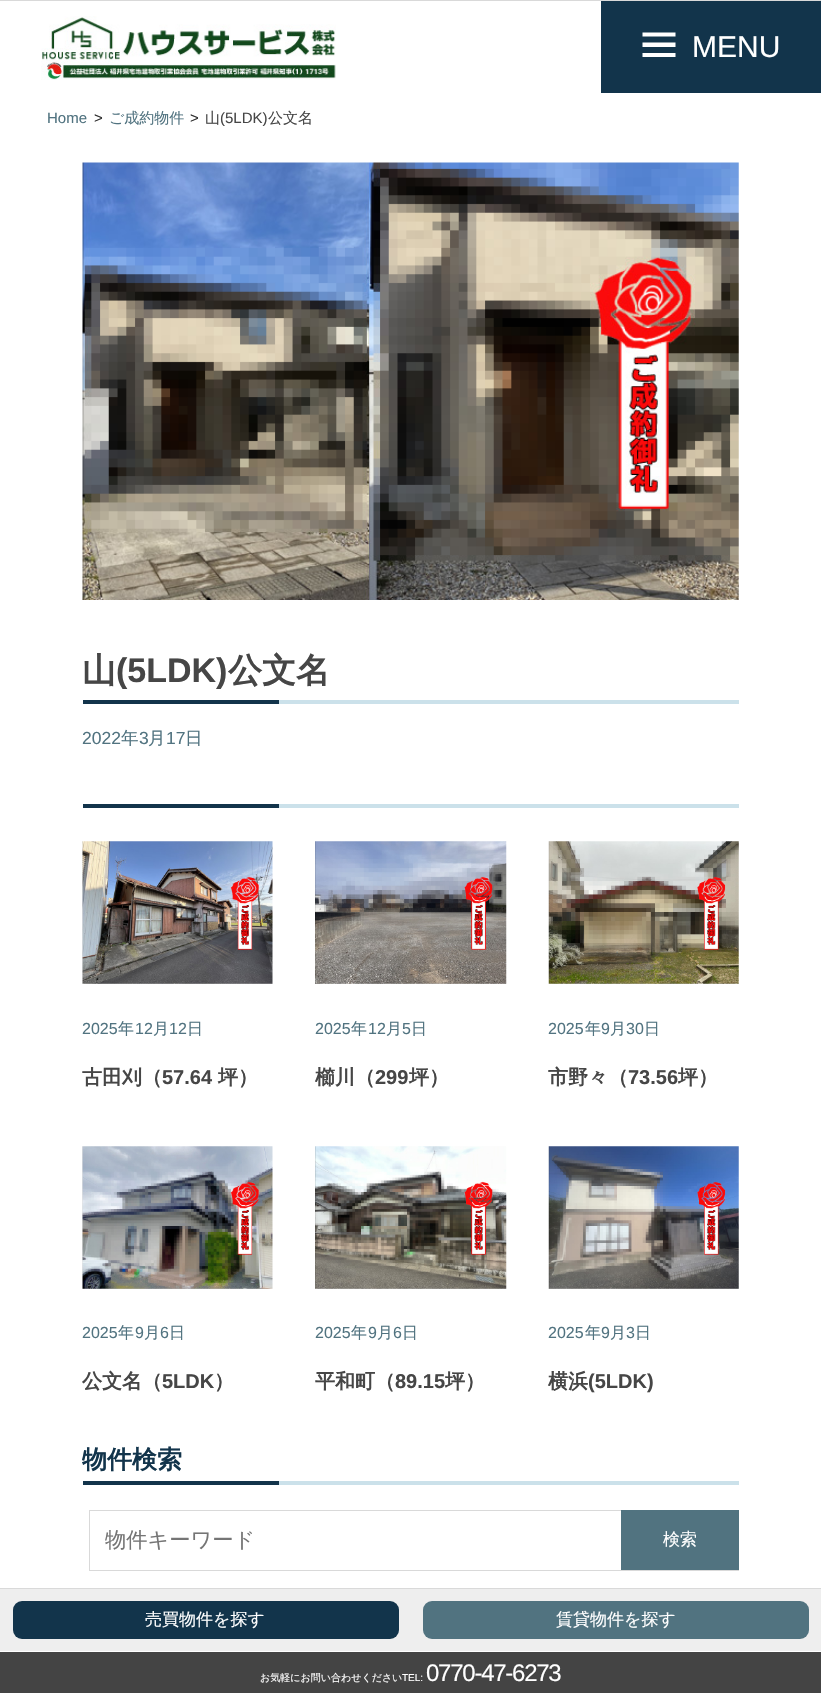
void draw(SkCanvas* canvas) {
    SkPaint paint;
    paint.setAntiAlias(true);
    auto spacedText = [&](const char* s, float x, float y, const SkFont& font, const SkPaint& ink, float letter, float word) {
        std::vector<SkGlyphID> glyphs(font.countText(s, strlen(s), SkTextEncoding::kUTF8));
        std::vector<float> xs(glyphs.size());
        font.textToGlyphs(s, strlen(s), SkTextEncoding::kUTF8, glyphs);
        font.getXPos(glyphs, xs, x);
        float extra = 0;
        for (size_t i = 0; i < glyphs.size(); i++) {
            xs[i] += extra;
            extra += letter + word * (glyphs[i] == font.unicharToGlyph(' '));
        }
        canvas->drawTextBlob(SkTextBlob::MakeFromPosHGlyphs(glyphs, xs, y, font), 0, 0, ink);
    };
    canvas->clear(0xFFFFFFFF);
    paint.setColor(0xFFD9D9D9);
    canvas->drawRect(SkRect::MakeXYWH(0, 0, 821, 1), paint);
    paint.setColor(0xFF12344B);
    canvas->drawRect(SkRect::MakeXYWH(601, 1, 220, 92), paint);
    paint.setColor(0xFFFFFFFF);
    canvas->drawPath(SkPathBuilder().moveTo(642.5f, 57).lineTo(642.5f, 53).lineTo(675.5f, 53).lineTo(675.5f, 57).close().moveTo(642.5f, 32.5f).lineTo(675.5f, 32.5f).lineTo(675.5f, 36.5f).lineTo(642.5f, 36.5f).close().moveTo(642.5f, 47).lineTo(642.5f, 42.5f).lineTo(675.5f, 42.5f).lineTo(675.5f, 47).close().detach(), paint);
    SkFont font1(fontMgr->matchFamilyStyle("Liberation Sans", SkFontStyle::Normal()), 30);
    font1.setSubpixel(true);
    canvas->drawString("MENU", 692, 57, font1, paint);
    canvas->drawImageRect(SkImages::DeferredFromEncodedData(SkData::MakeFromFileName("img1.png")), SkRect::MakeXYWH(41, 16, 295, 64), SkSamplingOptions());
    paint.setColor(0xFFD9D9D9);
    canvas->drawRect(SkRect::MakeXYWH(0, 1588, 821, 1), paint);
    paint.setColor(0xFFEEEEEE);
    canvas->drawRect(SkRect::MakeXYWH(0, 1589, 821, 62), paint);
    paint.setColor(0xFF12344B);
    canvas->drawRoundRect(SkRect::MakeXYWH(13, 1601, 386, 38), 9, 9, paint);
    SkFont font2(fontMgr->matchFamilyStyle("WenQuanYi Zen Hei", SkFontStyle(500, SkFontStyle::kNormal_Width, SkFontStyle::kUpright_Slant)), 17);
    font2.setSubpixel(true);
    paint.setColor(0xFFFFFFFF);
    canvas->drawString("売買物件を探す", 145, 1625, font2, paint);
    paint.setColor(0xFF517380);
    canvas->drawRoundRect(SkRect::MakeXYWH(423, 1601, 386, 38), 9, 9, paint);
    paint.setColor(0xFFFFFFFF);
    canvas->drawString("賃貸物件を探す", 556, 1625, font2, paint);
    paint.setColor(0xFF444444);
    canvas->drawRect(SkRect::MakeXYWH(0, 1652, 821, 41), paint);
    SkFont font3(fontMgr->matchFamilyStyle("WenQuanYi Zen Hei", SkFontStyle(500, SkFontStyle::kNormal_Width, SkFontStyle::kUpright_Slant)), 10);
    font3.setSubpixel(true);
    paint.setColor(0xFFFFFFFF);
    canvas->drawString("お気軽にお問い合わせください", 260, 1681, font3, paint);
    SkFont font4(fontMgr->matchFamilyStyle("Liberation Sans", SkFontStyle::Normal()), 10);
    font4.setSubpixel(true);
    canvas->drawString("TEL:", 402, 1681, font4, paint);
    SkFont font5(fontMgr->matchFamilyStyle("Liberation Sans", SkFontStyle::Normal()), 24);
    font5.setSubpixel(true);
    spacedText("0770-47-6273", 426, 1681, font5, paint, -1.25f, 0);
    SkFont font6(fontMgr->matchFamilyStyle("Liberation Sans", SkFontStyle::Normal()), 15);
    font6.setSubpixel(true);
    paint.setColor(0xFF517380);
    canvas->drawString("Home", 47, 123, font6, paint);
    paint.setColor(0xFF303030);
    canvas->drawString(">", 94, 123, font6, paint);
    SkFont font7(fontMgr->matchFamilyStyle("WenQuanYi Zen Hei", SkFontStyle(500, SkFontStyle::kNormal_Width, SkFontStyle::kUpright_Slant)), 15);
    font7.setSubpixel(true);
    paint.setColor(0xFF517380);
    canvas->drawString("ご成約物件", 109, 123, font7, paint);
    paint.setColor(0xFF303030);
    canvas->drawString(">", 190, 123, font6, paint);
    paint.setColor(0xFF464646);
    canvas->drawString("山", 205, 123, font7, paint);
    canvas->drawString("(5LDK)", 220, 123, font6, paint);
    canvas->drawString("公文名", 268, 123, font7, paint);
    canvas->drawImageRect(SkImages::DeferredFromEncodedData(SkData::MakeFromFileName("img2.png")), SkRect::MakeXYWH(82, 162, 657, 438), SkSamplingOptions());
    paint.setColor(0xFFCBE1EA);
    canvas->drawRect(SkRect::MakeXYWH(279, 700, 460, 4), paint);
    SkFont font8(fontMgr->matchFamilyStyle("WenQuanYi Zen Hei", SkFontStyle::Bold()), 34);
    font8.setSubpixel(true);
    paint.setColor(0xFF464646);
    canvas->drawString("山", 82, 682, font8, paint);
    SkFont font9(fontMgr->matchFamilyStyle("Liberation Sans", SkFontStyle::Bold()), 34);
    font9.setSubpixel(true);
    canvas->drawString("(5LDK)", 116, 682, font9, paint);
    canvas->drawString("公文名", 228, 682, font8, paint);
    paint.setColor(0xFF12344B);
    canvas->drawRect(SkRect::MakeXYWH(83, 700, 196, 4), paint);
    SkFont font10(fontMgr->matchFamilyStyle("Liberation Sans", SkFontStyle::Normal()), 17.5f);
    font10.setSubpixel(true);
    paint.setColor(0xFF517380);
    canvas->drawString("2022", 82, 744, font10, paint);
    SkFont font11(fontMgr->matchFamilyStyle("WenQuanYi Zen Hei", SkFontStyle(500, SkFontStyle::kNormal_Width, SkFontStyle::kUpright_Slant)), 17.5f);
    font11.setSubpixel(true);
    canvas->drawString("年", 121, 744, font11, paint);
    canvas->drawString("3", 139, 744, font10, paint);
    canvas->drawString("月", 148, 744, font11, paint);
    canvas->drawString("17", 166, 744, font10, paint);
    canvas->drawString("日", 185, 744, font11, paint);
    paint.setColor(0xFFCBE1EA);
    canvas->drawRect(SkRect::MakeXYWH(279, 804, 460, 4), paint);
    paint.setColor(0xFF12344B);
    canvas->drawRect(SkRect::MakeXYWH(83, 804, 196, 4), paint);
    canvas->drawImageRect(SkImages::DeferredFromEncodedData(SkData::MakeFromFileName("img3.png")), SkRect::MakeXYWH(82, 841, 191, 143), SkSamplingOptions());
    SkFont font12(fontMgr->matchFamilyStyle("Liberation Sans", SkFontStyle::Normal()), 16);
    font12.setSubpixel(true);
    paint.setColor(0xFF517380);
    canvas->drawString("2025", 82, 1034, font12, paint);
    SkFont font13(fontMgr->matchFamilyStyle("WenQuanYi Zen Hei", SkFontStyle(500, SkFontStyle::kNormal_Width, SkFontStyle::kUpright_Slant)), 16);
    font13.setSubpixel(true);
    canvas->drawString("年", 118, 1034, font13, paint);
    canvas->drawString("12", 135, 1034, font12, paint);
    canvas->drawString("月", 153, 1034, font13, paint);
    canvas->drawString("12", 169, 1034, font12, paint);
    canvas->drawString("日", 187, 1034, font13, paint);
    SkFont font14(fontMgr->matchFamilyStyle("WenQuanYi Zen Hei", SkFontStyle::Bold()), 20);
    font14.setSubpixel(true);
    paint.setColor(0xFF464646);
    canvas->drawString("古田刈（", 82, 1084, font14, paint);
    SkFont font15(fontMgr->matchFamilyStyle("Liberation Sans", SkFontStyle::Bold()), 20);
    font15.setSubpixel(true);
    canvas->drawString("57.64", 162, 1084, font15, paint);
    canvas->drawString("坪）", 218, 1084, font14, paint);
    canvas->drawImageRect(SkImages::DeferredFromEncodedData(SkData::MakeFromFileName("img4.png")), SkRect::MakeXYWH(315, 841, 192, 143), SkSamplingOptions());
    paint.setColor(0xFF517380);
    canvas->drawString("2025", 315, 1034, font12, paint);
    canvas->drawString("年", 351, 1034, font13, paint);
    canvas->drawString("12", 368, 1034, font12, paint);
    canvas->drawString("月", 386, 1034, font13, paint);
    canvas->drawString("5", 402, 1034, font12, paint);
    canvas->drawString("日", 411, 1034, font13, paint);
    paint.setColor(0xFF464646);
    canvas->drawString("櫛川（", 315, 1084, font14, paint);
    canvas->drawString("299", 375, 1084, font15, paint);
    canvas->drawString("坪）", 409, 1084, font14, paint);
    canvas->drawImageRect(SkImages::DeferredFromEncodedData(SkData::MakeFromFileName("img5.png")), SkRect::MakeXYWH(548, 841, 191, 143), SkSamplingOptions());
    paint.setColor(0xFF517380);
    canvas->drawString("2025", 548, 1034, font12, paint);
    canvas->drawString("年", 585, 1034, font13, paint);
    canvas->drawString("9", 601, 1034, font12, paint);
    canvas->drawString("月", 610, 1034, font13, paint);
    canvas->drawString("30", 626, 1034, font12, paint);
    canvas->drawString("日", 644, 1034, font13, paint);
    paint.setColor(0xFF464646);
    canvas->drawString("市野々（", 548, 1084, font14, paint);
    canvas->drawString("73.56", 628, 1084, font15, paint);
    canvas->drawString("坪）", 678, 1084, font14, paint);
    canvas->drawImageRect(SkImages::DeferredFromEncodedData(SkData::MakeFromFileName("img6.png")), SkRect::MakeXYWH(82, 1146, 191, 143), SkSamplingOptions());
    paint.setColor(0xFF517380);
    canvas->drawString("2025", 82, 1338, font12, paint);
    canvas->drawString("年", 118, 1338, font13, paint);
    canvas->drawString("9", 135, 1338, font12, paint);
    canvas->drawString("月", 144, 1338, font13, paint);
    canvas->drawString("6", 160, 1338, font12, paint);
    canvas->drawString("日", 169, 1338, font13, paint);
    paint.setColor(0xFF464646);
    canvas->drawString("公文名（", 82, 1388, font14, paint);
    canvas->drawString("5LDK", 162, 1388, font15, paint);
    canvas->drawString("）", 214, 1388, font14, paint);
    canvas->drawImageRect(SkImages::DeferredFromEncodedData(SkData::MakeFromFileName("img7.png")), SkRect::MakeXYWH(315, 1146, 192, 143), SkSamplingOptions());
    paint.setColor(0xFF517380);
    canvas->drawString("2025", 315, 1338, font12, paint);
    canvas->drawString("年", 351, 1338, font13, paint);
    canvas->drawString("9", 368, 1338, font12, paint);
    canvas->drawString("月", 377, 1338, font13, paint);
    canvas->drawString("6", 393, 1338, font12, paint);
    canvas->drawString("日", 402, 1338, font13, paint);
    paint.setColor(0xFF464646);
    canvas->drawString("平和町（", 315, 1388, font14, paint);
    canvas->drawString("89.15", 395, 1388, font15, paint);
    canvas->drawString("坪）", 445, 1388, font14, paint);
    canvas->drawImageRect(SkImages::DeferredFromEncodedData(SkData::MakeFromFileName("img8.png")), SkRect::MakeXYWH(548, 1146, 191, 143), SkSamplingOptions());
    paint.setColor(0xFF517380);
    canvas->drawString("2025", 548, 1338, font12, paint);
    canvas->drawString("年", 585, 1338, font13, paint);
    canvas->drawString("9", 601, 1338, font12, paint);
    canvas->drawString("月", 610, 1338, font13, paint);
    canvas->drawString("3", 626, 1338, font12, paint);
    canvas->drawString("日", 635, 1338, font13, paint);
    paint.setColor(0xFF464646);
    canvas->drawString("横浜", 548, 1388, font14, paint);
    canvas->drawString("(5LDK)", 588, 1388, font15, paint);
    paint.setColor(0xFFCBE1EA);
    canvas->drawRect(SkRect::MakeXYWH(279, 1481, 460, 4), paint);
    SkFont font16(fontMgr->matchFamilyStyle("WenQuanYi Zen Hei", SkFontStyle::Bold()), 25);
    font16.setSubpixel(true);
    paint.setColor(0xFF12344B);
    canvas->drawString("物件検索", 82, 1468, font16, paint);
    canvas->drawRect(SkRect::MakeXYWH(83, 1481, 196, 4), paint);
    canvas->save();
    canvas->clipRect(SkRect::MakeXYWH(83, 1510, 656, 61));
    paint.setStyle(SkPaint::kStroke_Style);
    paint.setStrokeWidth(1);
    paint.setColor(0xFFD9D9D9);
    canvas->drawRect(SkRect::MakeXYWH(89.5f, 1510.5f, 655, 60), paint);
    canvas->restore();
    canvas->save();
    canvas->clipRect(SkRect::MakeXYWH(105, 1526, 603, 29));
    SkFont font17(fontMgr->matchFamilyStyle("WenQuanYi Zen Hei", SkFontStyle(500, SkFontStyle::kNormal_Width, SkFontStyle::kUpright_Slant)), 21.25f);
    font17.setSubpixel(true);
    paint.setStyle(SkPaint::kFill_Style);
    paint.setColor(0xFF757575);
    canvas->drawString("物件キーワード", 105, 1547, font17, paint);
    canvas->restore();
    paint.setColor(0xFF517380);
    canvas->drawRect(SkRect::MakeXYWH(621, 1510, 118, 60), paint);
    paint.setColor(0xFFFFFFFF);
    canvas->drawString("検索", 663, 1545, font2, paint);
}
